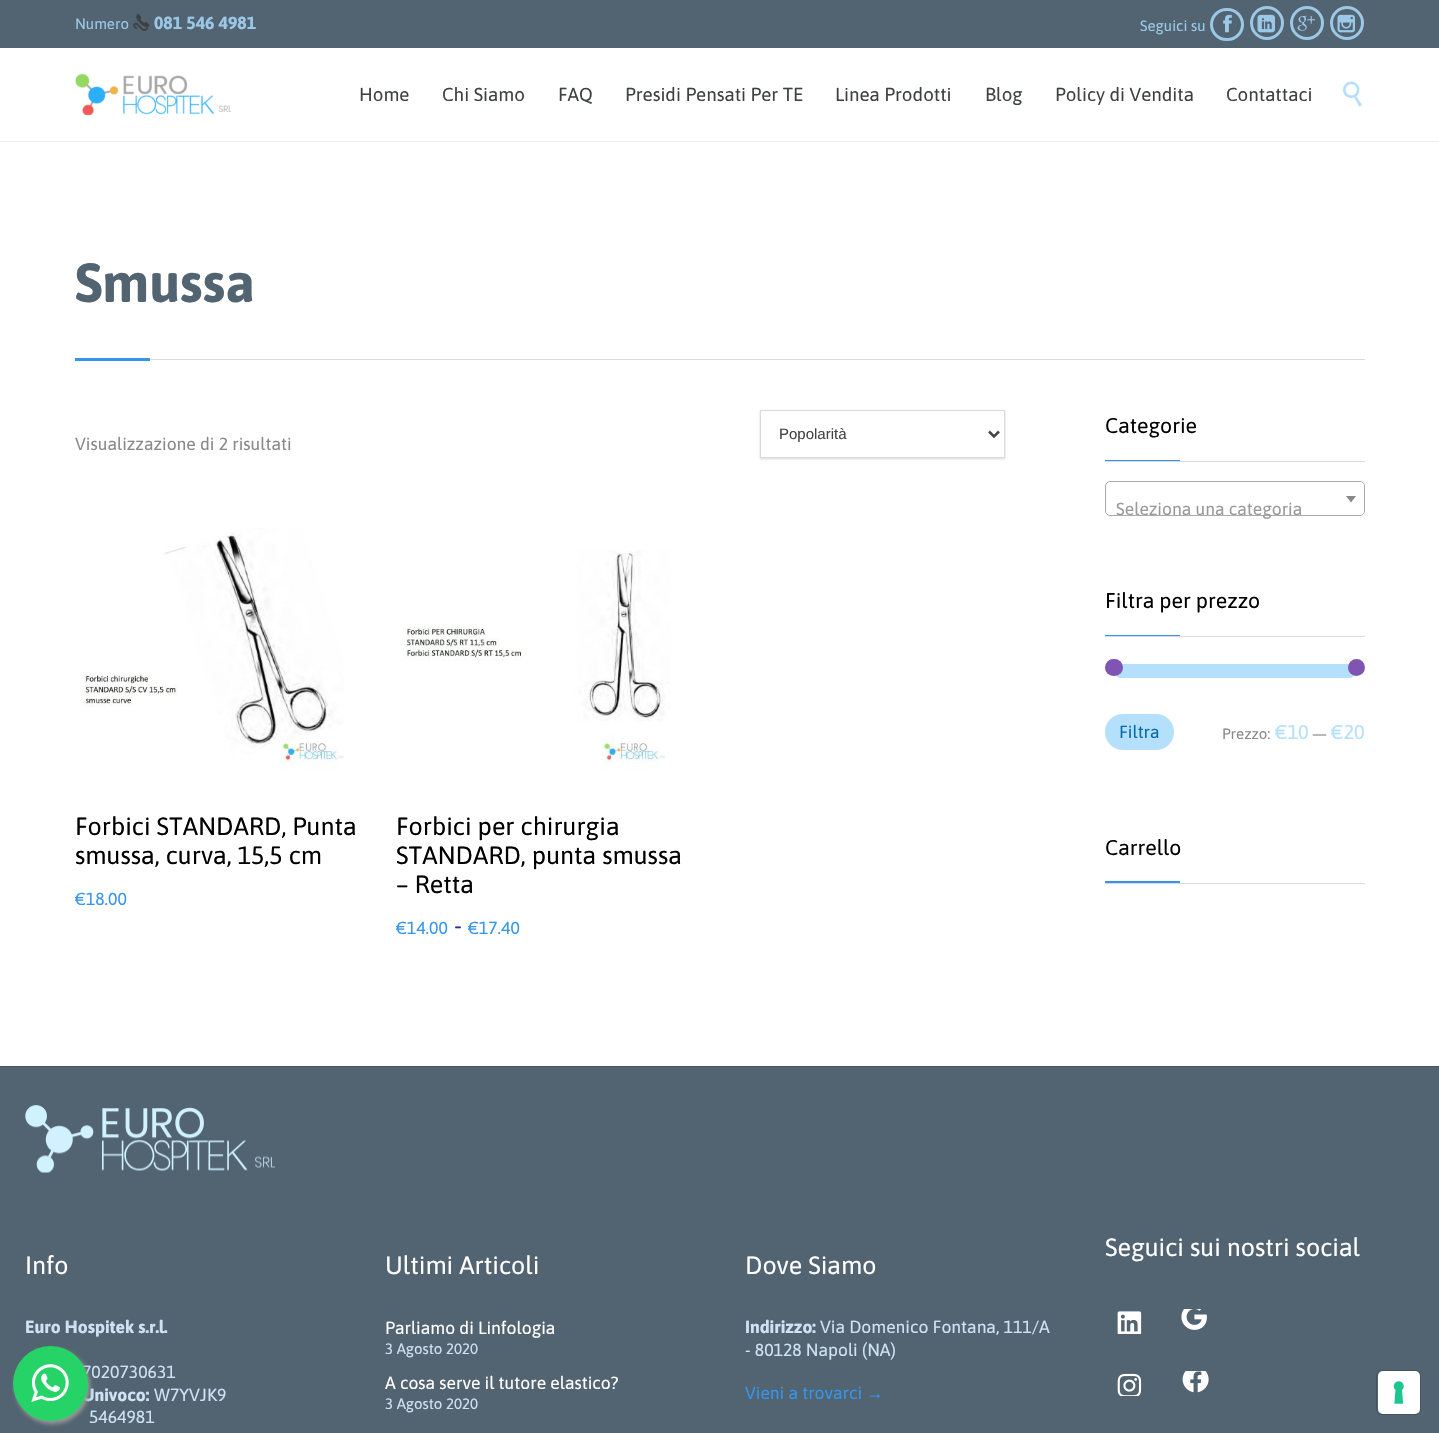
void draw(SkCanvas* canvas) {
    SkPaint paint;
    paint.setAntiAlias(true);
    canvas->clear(0xFFFFFFFF);
    paint.setColor(0xFFF0F0F1);
    canvas->drawRect(SkRect::MakeXYWH(0, 141, 1439, 1), paint);
    paint.setColor(0xFF526371);
    canvas->drawRect(SkRect::MakeXYWH(0, 0, 1439, 48), paint);
    SkFont font1(fontMgr->matchFamilyStyle("Asap", SkFontStyle::Normal()), 15);
    font1.setSubpixel(true);
    paint.setColor(0xFF9AC8E6);
    canvas->drawString("Numero", 75, 29, font1, paint);
    canvas->drawImageRect(SkImages::DeferredFromEncodedData(SkData::MakeFromFileName("img1.png")), SkRect::MakeXYWH(133, 13, 17, 18), SkSamplingOptions());
    SkFont font2(fontMgr->matchFamilyStyle("Asap", SkFontStyle::Bold()), 17.5f);
    font2.setSubpixel(true);
    canvas->drawString("081 546 4981", 154, 29, font2, paint);
    canvas->drawString("Seguici su", 1140, 31, font1, paint);
    paint.setStyle(SkPaint::kStroke_Style);
    paint.setStrokeWidth(3);
    canvas->drawRoundRect(SkRect::MakeXYWH(1211.5f, 9.5f, 31, 30), 15, 15, paint);
    canvas->drawImageRect(SkImages::DeferredFromEncodedData(SkData::MakeFromFileName("img2.png")), SkRect::MakeXYWH(1223, 14, 9, 19), SkSamplingOptions());
    canvas->drawCircle(1267, 23, 15.5f, paint);
    canvas->drawImageRect(SkImages::DeferredFromEncodedData(SkData::MakeFromFileName("img3.png")), SkRect::MakeXYWH(1257, 14, 18, 19), SkSamplingOptions());
    canvas->drawCircle(1307, 23, 15.5f, paint);
    canvas->drawImageRect(SkImages::DeferredFromEncodedData(SkData::MakeFromFileName("img4.png")), SkRect::MakeXYWH(1297, 15, 18, 16), SkSamplingOptions());
    canvas->drawCircle(1347, 23, 15.5f, paint);
    canvas->drawImageRect(SkImages::DeferredFromEncodedData(SkData::MakeFromFileName("img5.png")), SkRect::MakeXYWH(1337, 14, 18, 19), SkSamplingOptions());
    canvas->drawImageRect(SkImages::DeferredFromEncodedData(SkData::MakeFromFileName("img6.png")), SkRect::MakeXYWH(75, 73, 157, 43), SkSamplingOptions());
    SkFont font3(fontMgr->matchFamilyStyle("Asap", SkFontStyle::Normal()), 18.75f);
    font3.setSubpixel(true);
    paint.setStyle(SkPaint::kFill_Style);
    paint.setColor(0xFF3E4043);
    canvas->drawString("Home", 359, 101, font3, paint);
    canvas->drawString("Chi Siamo", 442, 101, font3, paint);
    canvas->drawString("FAQ", 558, 101, font3, paint);
    canvas->drawString("Presidi Pensati Per TE", 625, 101, font3, paint);
    canvas->drawString("Linea Prodotti", 835, 101, font3, paint);
    canvas->drawString("Blog", 985, 101, font3, paint);
    canvas->drawString("Policy di Vendita", 1055, 101, font3, paint);
    canvas->drawString("Contattaci", 1226, 101, font3, paint);
    canvas->drawImageRect(SkImages::DeferredFromEncodedData(SkData::MakeFromFileName("img7.png")), SkRect::MakeXYWH(1343, 81, 19, 26), SkSamplingOptions());
    paint.setColor(0xFFDADADE);
    canvas->drawRect(SkRect::MakeXYWH(150, 359, 1215, 1), paint);
    SkFont font4(fontMgr->matchFamilyStyle("Asap", SkFontStyle::Bold()), 55);
    font4.setSubpixel(true);
    paint.setColor(0xFF526371);
    canvas->drawString("Smussa", 75, 302, font4, paint);
    paint.setColor(0xFF3695EB);
    canvas->drawRect(SkRect::MakeXYWH(75, 358, 75, 3), paint);
    SkFont font5(fontMgr->matchFamilyStyle("Asap", SkFontStyle::Normal()), 17.5f);
    font5.setSubpixel(true);
    paint.setColor(0xFF898989);
    canvas->drawString("Visualizzazione di 2 risultati", 75, 450, font5, paint);
    paint.setColor(0x29000000);
    paint.setMaskFilter(SkMaskFilter::MakeBlur(kNormal_SkBlurStyle, 1));
    canvas->drawRect(SkRect::MakeXYWH(760, 411, 245, 48), paint);
    paint.setMaskFilter(nullptr);
    paint.setColor(0xFFFFFFFF);
    canvas->drawRect(SkRect::MakeXYWH(760.5f, 410.5f, 244, 47), paint);
    paint.setStyle(SkPaint::kStroke_Style);
    paint.setStrokeWidth(1);
    paint.setColor(0xFFDADADE);
    canvas->drawRect(SkRect::MakeXYWH(760.5f, 410.5f, 244, 47), paint);
    paint.setStrokeWidth(2.5f);
    paint.setColor(0xFF444444);
    canvas->drawPath(SkPathBuilder().moveTo(989, 431.5f).lineTo(994, 436.5f).lineTo(999, 431.5f).detach(), paint);
    SkFont font6(fontMgr->matchFamilyStyle("Liberation Sans", SkFontStyle::Normal()), 15);
    font6.setSubpixel(true);
    paint.setStyle(SkPaint::kFill_Style);
    canvas->drawString("Popolarità", 779, 439, font6, paint);
    canvas->drawImageRect(SkImages::DeferredFromEncodedData(SkData::MakeFromFileName("img8.png")), SkRect::MakeXYWH(81, 528, 263, 242), SkSamplingOptions());
    SkFont font7(fontMgr->matchFamilyStyle("Asap", SkFontStyle::Normal()), 25);
    font7.setSubpixel(true);
    paint.setColor(0xFF000000);
    canvas->drawString("Forbici STANDARD, Punta", 75, 835, font7, paint);
    canvas->drawString("smussa, curva, 15,5 cm", 75, 864, font7, paint);
    paint.setColor(0xFF3695EB);
    canvas->drawString("€18.00", 75, 905, font5, paint);
    canvas->drawImageRect(SkImages::DeferredFromEncodedData(SkData::MakeFromFileName("img9.png")), SkRect::MakeXYWH(402, 550, 269, 220), SkSamplingOptions());
    paint.setColor(0xFF000000);
    canvas->drawString("Forbici per chirurgia", 396, 835, font7, paint);
    canvas->drawString("STANDARD, punta smussa", 396, 864, font7, paint);
    canvas->drawString("– Retta", 396, 893, font7, paint);
    paint.setColor(0xFF3695EB);
    canvas->drawString("€14.00", 396, 934, font5, paint);
    paint.setColor(0xFF202ABC);
    canvas->drawString("-", 454, 934, font7, paint);
    paint.setColor(0xFF3695EB);
    canvas->drawString("€17.40", 468, 934, font5, paint);
    paint.setColor(0xFFDADADE);
    canvas->drawRect(SkRect::MakeXYWH(1105, 461, 260, 1), paint);
    SkFont font8(fontMgr->matchFamilyStyle("Asap", SkFontStyle::Normal()), 21.25f);
    font8.setSubpixel(true);
    paint.setColor(0xFF000000);
    canvas->drawString("Categorie", 1105, 433, font8, paint);
    paint.setColor(0xFF3695EB);
    canvas->drawRect(SkRect::MakeXYWH(1105, 460, 75, 1), paint);
    paint.setStyle(SkPaint::kStroke_Style);
    paint.setStrokeWidth(1);
    paint.setColor(0xFFAAAAAA);
    canvas->drawRoundRect(SkRect::MakeXYWH(1105.5f, 481.5f, 259, 34), 4.5f, 4.5f, paint);
    paint.setStyle(SkPaint::kFill_Style);
    paint.setColor(0xFF888888);
    canvas->drawPath(SkPathBuilder().moveTo(1346, 496).lineTo(1356, 496).lineTo(1351, 502.5f).close().detach(), paint);
    paint.setColor(0xFF999999);
    canvas->drawString("Seleziona una categoria", 1116, 515, font5, paint);
    paint.setColor(0xFFDADADE);
    canvas->drawRect(SkRect::MakeXYWH(1105, 636, 260, 1), paint);
    paint.setColor(0xFF000000);
    canvas->drawString("Filtra per prezzo", 1105, 608, font8, paint);
    paint.setColor(0xFF3695EB);
    canvas->drawRect(SkRect::MakeXYWH(1105, 635, 75, 1), paint);
    paint.setColor(0xFFB5E0FC);
    canvas->drawRoundRect(SkRect::MakeXYWH(1114, 664, 242, 14), 7, 7, paint);
    paint.setColor(0xFF7F54B3);
    canvas->drawRoundRect(SkRect::MakeXYWH(1105, 659, 18, 17), 8.5f, 8.5f, paint);
    canvas->drawCircle(1356.5f, 667.5f, 8.5f, paint);
    paint.setColor(0xFFB5E0FC);
    canvas->drawRoundRect(SkRect::MakeXYWH(1105, 714, 69, 36), 18, 18, paint);
    paint.setColor(0xFF076AAB);
    canvas->drawString("Filtra", 1119, 738, font5, paint);
    paint.setColor(0xFF898989);
    canvas->drawString("Prezzo:", 1222, 739, font1, paint);
    SkFont font9(fontMgr->matchFamilyStyle("Asap", SkFontStyle::Normal()), 20);
    font9.setSubpixel(true);
    paint.setColor(0xFFB5E0FC);
    canvas->drawString("€10", 1275, 739, font9, paint);
    paint.setColor(0xFF898989);
    canvas->drawString("—", 1312, 739, font1, paint);
    paint.setColor(0xFFB5E0FC);
    canvas->drawString("€20", 1331, 739, font9, paint);
    paint.setColor(0xFFDADADE);
    canvas->drawRect(SkRect::MakeXYWH(1105, 883, 260, 1), paint);
    paint.setColor(0xFF000000);
    canvas->drawString("Carrello", 1105, 855, font8, paint);
    paint.setColor(0xFF3695EB);
    canvas->drawRect(SkRect::MakeXYWH(1105, 881, 75, 2), paint);
    paint.setColor(0xFF526371);
    canvas->drawRect(SkRect::MakeXYWH(0, 1067, 1439, 366), paint);
    paint.setColor(0xFF475662);
    canvas->drawRect(SkRect::MakeXYWH(0, 1066, 1439, 1), paint);
    canvas->drawImageRect(SkImages::DeferredFromEncodedData(SkData::MakeFromFileName("img10.png")), SkRect::MakeXYWH(25, 1105, 250, 68), SkSamplingOptions());
    paint.setColor(0xFFFFFFFF);
    canvas->drawString("Seguici sui nostri social", 1105, 1256, font7, paint);
    canvas->drawImageRect(SkImages::DeferredFromEncodedData(SkData::MakeFromFileName("img11.png")), SkRect::MakeXYWH(1117, 1311, 25, 23), SkSamplingOptions());
    canvas->drawImageRect(SkImages::DeferredFromEncodedData(SkData::MakeFromFileName("img12.png")), SkRect::MakeXYWH(1181, 1309, 26, 21), SkSamplingOptions());
    canvas->drawImageRect(SkImages::DeferredFromEncodedData(SkData::MakeFromFileName("img13.png")), SkRect::MakeXYWH(1117, 1373, 25, 23), SkSamplingOptions());
    canvas->drawImageRect(SkImages::DeferredFromEncodedData(SkData::MakeFromFileName("img14.png")), SkRect::MakeXYWH(1182, 1371, 27, 22), SkSamplingOptions());
    canvas->drawString("Info", 25, 1274, font7, paint);
    paint.setColor(0xFFCDE2F4);
    canvas->drawString("Euro Hospitek s.r.l.", 25, 1333, font2, paint);
    canvas->drawString("7020730631", 82, 1378, font5, paint);
    canvas->drawString("Univoco:", 82, 1401, font2, paint);
    canvas->drawString("W7YVJK9", 154, 1401, font5, paint);
    canvas->drawString("5464981", 89, 1423, font5, paint);
    paint.setColor(0xFFFFFFFF);
    canvas->drawString("Ultimi Articoli", 385, 1274, font7, paint);
    canvas->drawString("Parliamo di Linfologia", 385, 1334, font5, paint);
    paint.setColor(0xFFCDE2F4);
    canvas->drawString("3 Agosto 2020", 385, 1354, font1, paint);
    paint.setColor(0xFFFFFFFF);
    canvas->drawString("A cosa serve il tutore elastico?", 385, 1389, font5, paint);
    paint.setColor(0xFFCDE2F4);
    canvas->drawString("3 Agosto 2020", 385, 1409, font1, paint);
    paint.setColor(0xFFFFFFFF);
    canvas->drawString("Dove Siamo", 745, 1274, font7, paint);
    paint.setColor(0xFFCDE2F4);
    canvas->drawString("Indirizzo:", 745, 1333, font2, paint);
    canvas->drawString("Via Domenico Fontana, 111/A", 820, 1333, font5, paint);
    canvas->drawString("- 80128 Napoli (NA)", 745, 1356, font5, paint);
    paint.setColor(0xFF3695EB);
    canvas->drawString("Vieni a trovarci", 745, 1399, font5, paint);
    SkFont font10(fontMgr->matchFamilyStyle("Liberation Serif", SkFontStyle::Normal()), 17.5f);
    font10.setSubpixel(true);
    canvas->drawString("→", 866, 1399, font10, paint);
    paint.setColor(0xFF999999);
    paint.setMaskFilter(SkMaskFilter::MakeBlur(kNormal_SkBlurStyle, 2));
    canvas->drawRoundRect(SkRect::MakeXYWH(15, 1349, 75, 75), 37.5f, 37.5f, paint);
    paint.setMaskFilter(nullptr);
    paint.setColor(0xFF25D366);
    canvas->drawCircle(50.5f, 1383.5f, 37.5f, paint);
    canvas->drawImageRect(SkImages::DeferredFromEncodedData(SkData::MakeFromFileName("img15.png")), SkRect::MakeXYWH(31, 1364, 38, 38), SkSamplingOptions());
    paint.setStyle(SkPaint::kStroke_Style);
    paint.setColor(0xFF465460);
    canvas->drawRoundRect(SkRect::MakeXYWH(1376.5f, 1370.5f, 44, 44), 5.5f, 5.5f, paint);
    paint.setStyle(SkPaint::kFill_Style);
    paint.setColor(0xFFFFFFFF);
    canvas->drawRoundRect(SkRect::MakeXYWH(1378, 1371, 42, 43), 5, 5, paint);
    canvas->drawImageRect(SkImages::DeferredFromEncodedData(SkData::MakeFromFileName("img16.png")), SkRect::MakeXYWH(1393, 1381, 11, 23), SkSamplingOptions());
}
